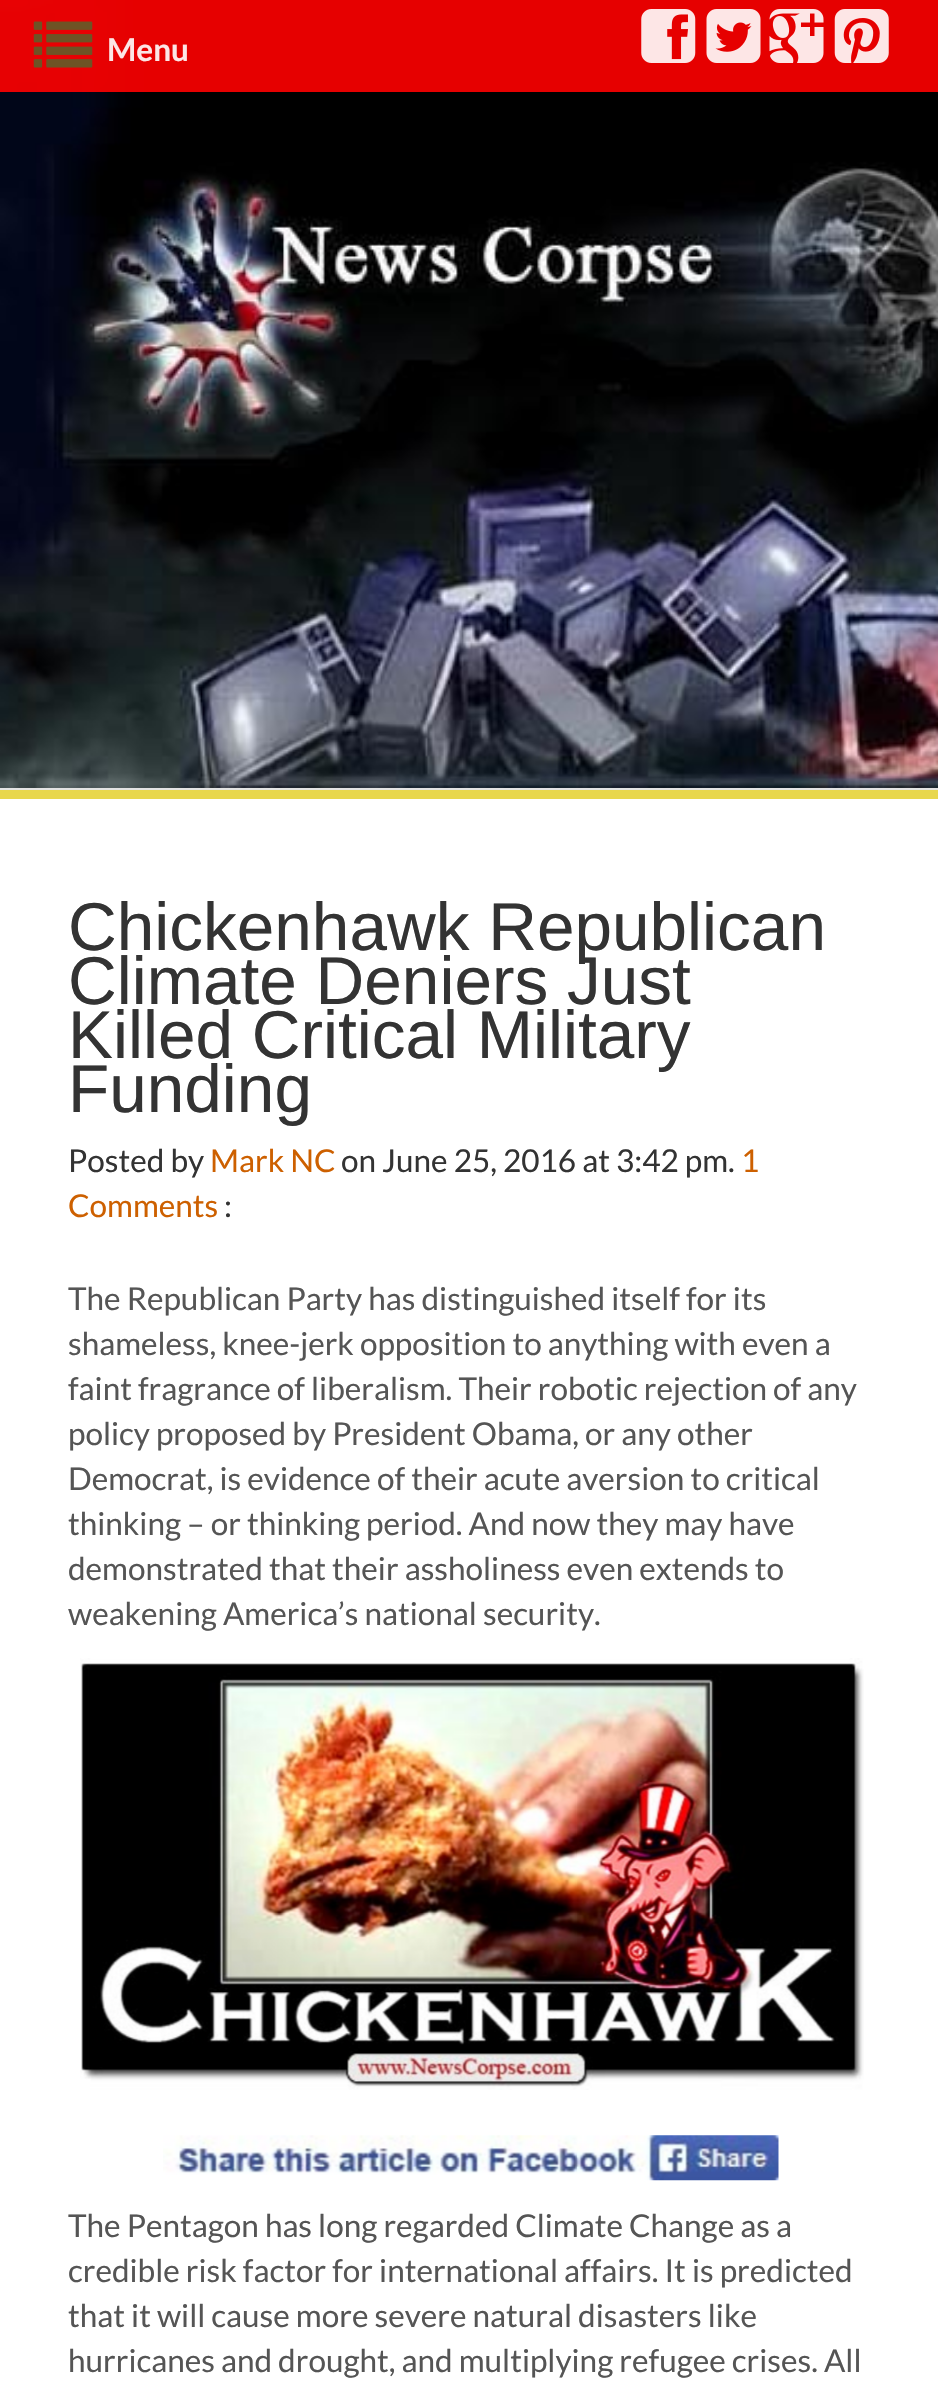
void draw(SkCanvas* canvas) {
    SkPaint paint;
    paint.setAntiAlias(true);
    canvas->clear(0xFFE3E3E3);
    canvas->drawImageRect(SkImages::DeferredFromEncodedData(SkData::MakeFromFileName("img1.png")), SkRect::MakeXYWH(0, 0, 938, 788), SkSamplingOptions());
    paint.setColor(0xE6FF0000);
    canvas->drawRect(SkRect::MakeXYWH(0, 0, 938, 92), paint);
    canvas->drawImageRect(SkImages::DeferredFromEncodedData(SkData::MakeFromFileName("img2.png")), SkRect::MakeXYWH(33, 21, 60, 47), SkSamplingOptions());
    SkFont font1(fontMgr->matchFamilyStyle("Lato", SkFontStyle::Bold()), 31.5f);
    font1.setSubpixel(true);
    paint.setColor(0xFFFCE6E6);
    canvas->drawString("Menu", 107, 61, font1, paint);
    canvas->drawImageRect(SkImages::DeferredFromEncodedData(SkData::MakeFromFileName("img3.png")), SkRect::MakeXYWH(641, 9, 55, 54), SkSamplingOptions());
    canvas->drawImageRect(SkImages::DeferredFromEncodedData(SkData::MakeFromFileName("img4.png")), SkRect::MakeXYWH(706, 9, 55, 54), SkSamplingOptions());
    canvas->drawImageRect(SkImages::DeferredFromEncodedData(SkData::MakeFromFileName("img5.png")), SkRect::MakeXYWH(769, 9, 55, 54), SkSamplingOptions());
    canvas->drawImageRect(SkImages::DeferredFromEncodedData(SkData::MakeFromFileName("img6.png")), SkRect::MakeXYWH(834, 9, 55, 54), SkSamplingOptions());
    paint.setColor(0xFFFFFFFF);
    canvas->drawRect(SkRect::MakeXYWH(0, 799, 938, 1583), paint);
    paint.setColor(0xFFE8D74D);
    canvas->drawRect(SkRect::MakeXYWH(0, 790, 938, 9), paint);
    SkFont font2(fontMgr->matchFamilyStyle("Liberation Sans", SkFontStyle::Normal()), 67.5f);
    font2.setSubpixel(true);
    paint.setColor(0xFF333333);
    canvas->drawString("Chickenhawk Republican", 68, 950, font2, paint);
    canvas->drawString("Climate Deniers Just", 68, 1004, font2, paint);
    canvas->drawString("Killed Critical Military", 68, 1058, font2, paint);
    canvas->drawString("Funding", 68, 1112, font2, paint);
    SkFont font3(fontMgr->matchFamilyStyle("Lato", SkFontStyle::Normal()), 31.5f);
    font3.setSubpixel(true);
    canvas->drawString("Posted by", 68, 1172, font3, paint);
    paint.setColor(0xFFCD6000);
    canvas->drawString("Mark NC", 210, 1172, font3, paint);
    paint.setColor(0xFF333333);
    canvas->drawString("on June 25, 2016 at 3:42 pm.", 341, 1172, font3, paint);
    paint.setColor(0xFFCD6000);
    canvas->drawString("1", 741, 1172, font3, paint);
    canvas->drawString("Comments", 68, 1217, font3, paint);
    paint.setColor(0xFF333333);
    canvas->drawString(":", 224, 1217, font3, paint);
    paint.setColor(0xFF555555);
    canvas->drawString("The Republican Party has distinguished itself for its", 68, 1310, font3, paint);
    canvas->drawString("shameless, knee-jerk opposition to anything with even a", 68, 1355, font3, paint);
    canvas->drawString("faint fragrance of liberalism. Their robotic rejection of any", 68, 1400, font3, paint);
    canvas->drawString("policy proposed by President Obama, or any other", 68, 1445, font3, paint);
    canvas->drawString("Democrat, is evidence of their acute aversion to critical", 68, 1490, font3, paint);
    canvas->drawString("thinking – or thinking period. And now they may have", 68, 1535, font3, paint);
    canvas->drawString("demonstrated that their assholiness even extends to", 68, 1580, font3, paint);
    canvas->drawString("weakening America’s national security.", 68, 1625, font3, paint);
    canvas->drawImageRect(SkImages::DeferredFromEncodedData(SkData::MakeFromFileName("img7.png")), SkRect::MakeXYWH(80, 1658, 784, 432), SkSamplingOptions());
    canvas->drawImageRect(SkImages::DeferredFromEncodedData(SkData::MakeFromFileName("img8.png")), SkRect::MakeXYWH(163, 2135, 616, 46), SkSamplingOptions());
    canvas->drawString("The Pentagon has long regarded Climate Change as a", 68, 2237, font3, paint);
    canvas->drawString("credible risk factor for international affairs. It is predicted", 68, 2282, font3, paint);
    canvas->drawString("that it will cause more severe natural disasters like", 68, 2327, font3, paint);
    canvas->drawString("hurricanes and drought, and multiplying refugee crises. All", 68, 2372, font3, paint);
}
